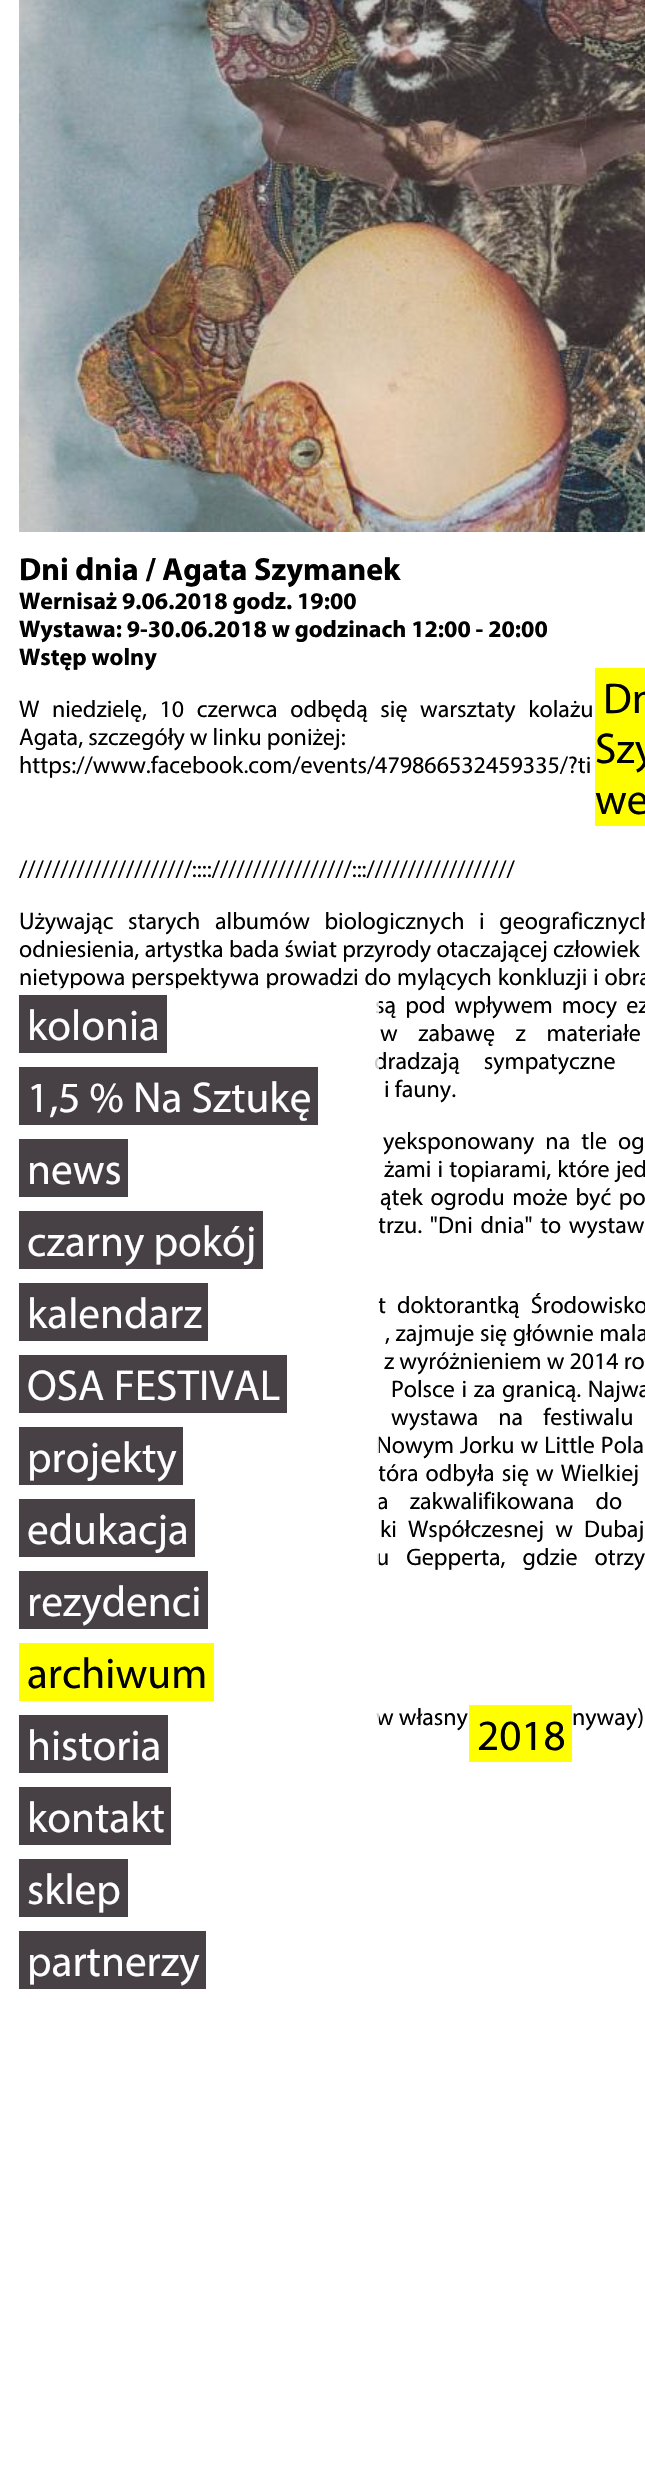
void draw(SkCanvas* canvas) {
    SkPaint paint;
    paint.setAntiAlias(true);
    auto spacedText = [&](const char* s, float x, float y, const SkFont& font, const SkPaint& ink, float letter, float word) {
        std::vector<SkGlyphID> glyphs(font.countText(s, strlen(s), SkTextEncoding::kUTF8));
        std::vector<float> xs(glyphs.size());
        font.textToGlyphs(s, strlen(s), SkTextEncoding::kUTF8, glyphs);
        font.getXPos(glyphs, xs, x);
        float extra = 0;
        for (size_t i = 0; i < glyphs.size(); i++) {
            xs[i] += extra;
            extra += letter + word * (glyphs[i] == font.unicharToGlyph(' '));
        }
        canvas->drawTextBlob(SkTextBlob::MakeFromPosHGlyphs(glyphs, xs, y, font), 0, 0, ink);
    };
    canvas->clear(0xFFFFFFFF);
    canvas->drawImageRect(SkImages::DeferredFromEncodedData(SkData::MakeFromFileName("img1.png")), SkRect::MakeXYWH(19, 0, 626, 532), SkSamplingOptions());
    SkFont font1(fontMgr->matchFamilyStyle("Myriad", SkFontStyle::Bold()), 32);
    font1.setSubpixel(true);
    paint.setColor(0xFF000000);
    canvas->drawString("Dni dnia / Agata Szymanek", 19, 580, font1, paint);
    SkFont font2(fontMgr->matchFamilyStyle("Myriad", SkFontStyle::Bold()), 24);
    font2.setSubpixel(true);
    canvas->drawString("Wernisaż 9.06.2018 godz. 19:00", 19, 609, font2, paint);
    canvas->drawString("Wystawa: 9-30.06.2018 w godzinach 12:00 - 20:00", 19, 637, font2, paint);
    canvas->drawString("Wstęp wolny", 19, 665, font2, paint);
    SkFont font3(fontMgr->matchFamilyStyle("Myriad", SkFontStyle::Normal()), 24);
    font3.setSubpixel(true);
    spacedText("W niedzielę, 10 czerwca odbędą się warsztaty kolażu", 19, 717, font3, paint, 0, 7.5f);
    canvas->drawString("Agata, szczegóły w linku poniżej:", 19, 745, font3, paint);
    canvas->drawString("https://www.facebook.com/events/479866532459335/?ti", 19, 773, font3, paint);
    canvas->drawString("/////////////////////:::://///////////////::://////////////////", 19, 877, font3, paint);
    spacedText("Używając starych albumów biologicznych i geograficznych", 19, 929, font3, paint, 0, 9.5f);
    spacedText("odniesienia, artystka bada świat przyrody otaczającej człowiek", 19, 957, font3, paint, 0, 0.25f);
    spacedText("nietypowa perspektywa prowadzi do mylących konkluzji i obra", 19, 985, font3, paint, 0, 0.75f);
    spacedText("są pod wpływem mocy ez", 375, 1013, font3, paint, 0, 4);
    spacedText("w zabawę z materiałe", 380, 1041, font3, paint, 0, 15.5f);
    spacedText("dradzają sympatyczne", 374, 1069, font3, paint, 0, 19);
    canvas->drawString("i fauny.", 384, 1097, font3, paint);
    spacedText("yeksponowany na tle og", 383, 1149, font3, paint, 0, 6);
    spacedText("żami i topiarami, które jed", 384, 1177, font3, paint, 0, 1);
    spacedText("ątek ogrodu może być po", 380, 1205, font3, paint, 0, 2.5f);
    spacedText("trzu. \"Dni dnia\" to wystaw", 378, 1233, font3, paint, 0, 2.5f);
    spacedText("t doktorantką Środowisko", 378, 1313, font3, paint, 0, 6);
    spacedText(", zajmuje się głównie mala", 385, 1341, font3, paint, 0, 0.5f);
    canvas->drawString("z wyróżnieniem w 2014 ro", 384, 1369, font3, paint);
    spacedText("Polsce i za granicą. Najwa", 391, 1397, font3, paint, 0, 1.5f);
    spacedText("wystawa na festiwalu", 391, 1425, font3, paint, 0, 15);
    spacedText("Nowym Jorku w Little Pola", 376, 1453, font3, paint, 0, 1);
    spacedText("tóra odbyła się w Wielkiej", 378, 1481, font3, paint, 0, 2);
    spacedText("a zakwalifikowana do", 377, 1509, font3, paint, 0, 16);
    spacedText("ki Współczesnej w Dubaj", 380, 1537, font3, paint, 0, 6);
    spacedText("u Gepperta, gdzie otrzy", 376, 1565, font3, paint, 0, 12);
    canvas->drawString("w własny", 376, 1725, font3, paint);
    canvas->drawString("nyway)", 572, 1725, font3, paint);
    paint.setColor(0xFFFFFF00);
    canvas->drawRect(SkRect::MakeXYWH(19, 1643, 195, 58), paint);
    SkFont font4(fontMgr->matchFamilyStyle("Myriad", SkFontStyle::Normal()), 43.25f);
    font4.setSubpixel(true);
    paint.setColor(0xFF000000);
    canvas->drawString("archiwum", 27, 1688, font4, paint);
    paint.setColor(0xFFFFFF00);
    canvas->drawRect(SkRect::MakeXYWH(595, 668, 50, 158), paint);
    paint.setColor(0xFF000000);
    canvas->drawString("Dn", 603, 713, font4, paint);
    canvas->drawString("Szy", 595, 763, font4, paint);
    canvas->drawString("we", 595, 814, font4, paint);
    paint.setColor(0xFFFFFF00);
    canvas->drawRect(SkRect::MakeXYWH(469, 1705, 103, 57), paint);
    paint.setColor(0xFF000000);
    canvas->drawString("2018", 477, 1750, font4, paint);
    paint.setColor(0xCCFFFFFF);
    canvas->drawRect(SkRect::MakeXYWH(59, 988, 320, 72), paint);
    paint.setColor(0xFF474145);
    canvas->drawRect(SkRect::MakeXYWH(19, 995, 148, 58), paint);
    paint.setColor(0xFFFFFFFF);
    canvas->drawString("kolonia", 27, 1040, font4, paint);
    paint.setColor(0xCCFFFFFF);
    canvas->drawRect(SkRect::MakeXYWH(374, 1060, 5, 10), paint);
    paint.setColor(0xFF474145);
    canvas->drawRect(SkRect::MakeXYWH(19, 1067, 299, 58), paint);
    paint.setColor(0xFFFFFFFF);
    canvas->drawString("1,5 % Na Sztukę", 27, 1112, font4, paint);
    paint.setColor(0xFF474145);
    canvas->drawRect(SkRect::MakeXYWH(19, 1139, 109, 58), paint);
    paint.setColor(0xFFFFFFFF);
    canvas->drawString("news", 27, 1184, font4, paint);
    paint.setColor(0xCCFFFFFF);
    canvas->drawRect(SkRect::MakeXYWH(378, 1221, 1, 2), paint);
    paint.setColor(0xFF474145);
    canvas->drawRect(SkRect::MakeXYWH(19, 1211, 244, 58), paint);
    paint.setColor(0xFFFFFFFF);
    canvas->drawString("czarny pokój", 27, 1256, font4, paint);
    paint.setColor(0xCCFFFFFF);
    canvas->drawRect(SkRect::MakeXYWH(378, 1301, 1, 2), paint);
    paint.setColor(0xFF474145);
    canvas->drawRect(SkRect::MakeXYWH(19, 1283, 189, 58), paint);
    paint.setColor(0xFFFFFFFF);
    canvas->drawString("kalendarz", 27, 1328, font4, paint);
    paint.setColor(0xFF474145);
    canvas->drawRect(SkRect::MakeXYWH(19, 1355, 268, 58), paint);
    paint.setColor(0xFFFFFFFF);
    canvas->drawString("OSA FESTIVAL", 27, 1400, font4, paint);
    paint.setColor(0xCCFFFFFF);
    canvas->drawRect(SkRect::MakeXYWH(377, 1436, 2, 35), paint);
    paint.setColor(0xFF474145);
    canvas->drawRect(SkRect::MakeXYWH(19, 1427, 164, 58), paint);
    paint.setColor(0xFFFFFFFF);
    canvas->drawString("projekty", 27, 1472, font4, paint);
    paint.setColor(0xCCFFFFFF);
    canvas->drawRect(SkRect::MakeXYWH(377, 1503, 2, 61), paint);
    paint.setColor(0xFF474145);
    canvas->drawRect(SkRect::MakeXYWH(19, 1499, 176, 58), paint);
    paint.setColor(0xFFFFFFFF);
    canvas->drawString("edukacja", 27, 1544, font4, paint);
    paint.setColor(0xCCFFFFFF);
    canvas->drawRect(SkRect::MakeXYWH(378, 1564, 1, 1), paint);
    paint.setColor(0xFF474145);
    canvas->drawRect(SkRect::MakeXYWH(19, 1571, 189, 58), paint);
    paint.setColor(0xFFFFFFFF);
    canvas->drawString("rezydenci", 27, 1616, font4, paint);
    paint.setColor(0xCCFFFFFF);
    canvas->drawRect(SkRect::MakeXYWH(376, 1713, 3, 9), paint);
    paint.setColor(0xFF474145);
    canvas->drawRect(SkRect::MakeXYWH(19, 1715, 149, 58), paint);
    paint.setColor(0xFFFFFFFF);
    canvas->drawString("historia", 27, 1760, font4, paint);
    paint.setColor(0xFF474145);
    canvas->drawRect(SkRect::MakeXYWH(19, 1787, 152, 58), paint);
    paint.setColor(0xFFFFFFFF);
    canvas->drawString("kontakt", 27, 1832, font4, paint);
    paint.setColor(0xFF474145);
    canvas->drawRect(SkRect::MakeXYWH(19, 1859, 109, 58), paint);
    paint.setColor(0xFFFFFFFF);
    canvas->drawString("sklep", 27, 1904, font4, paint);
    paint.setColor(0xFF474145);
    canvas->drawRect(SkRect::MakeXYWH(19, 1931, 187, 58), paint);
    paint.setColor(0xFFFFFFFF);
    canvas->drawString("partnerzy", 27, 1976, font4, paint);
}
